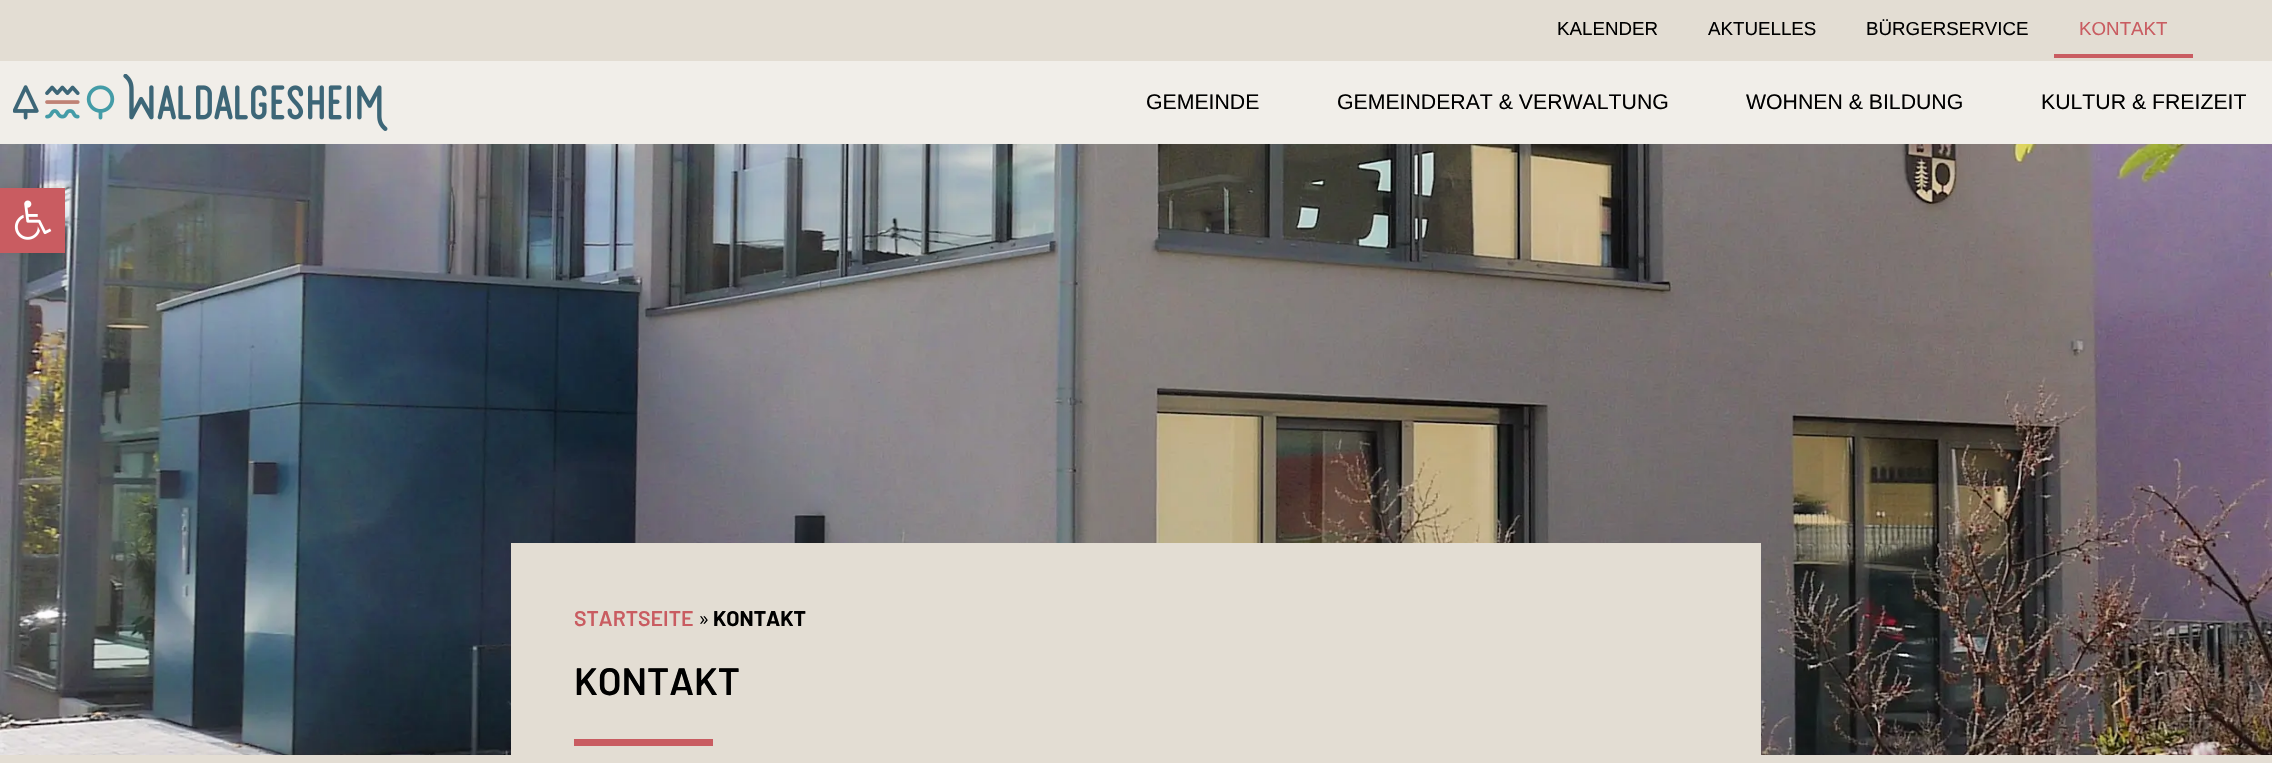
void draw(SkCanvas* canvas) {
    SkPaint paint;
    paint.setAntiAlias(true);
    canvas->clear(0xFFE3DDD3);
    SkFont font1(fontMgr->matchFamilyStyle("Liberation Sans", SkFontStyle::Normal()), 18.75f);
    font1.setSubpixel(true);
    paint.setColor(0xFF000000);
    canvas->drawString("KALENDER", 1557, 35, font1, paint);
    canvas->drawString("AKTUELLES", 1708, 35, font1, paint);
    canvas->drawString("BÜRGERSERVICE", 1866, 35, font1, paint);
    paint.setColor(0xFFC95C61);
    canvas->drawString("KONTAKT", 2079, 35, font1, paint);
    canvas->drawRect(SkRect::MakeXYWH(2054, 54, 139, 4), paint);
    paint.setColor(0xFFF1EEE9);
    canvas->drawRect(SkRect::MakeXYWH(0, 61, 2272, 83), paint);
    canvas->drawImageRect(SkImages::DeferredFromEncodedData(SkData::MakeFromFileName("img1.png")), SkRect::MakeXYWH(13, 74, 375, 57), SkSamplingOptions());
    SkFont font2(fontMgr->matchFamilyStyle("Liberation Sans", SkFontStyle::Normal()), 21.25f);
    font2.setSubpixel(true);
    paint.setColor(0xFF000000);
    canvas->drawString("GEMEINDE", 1146, 109, font2, paint);
    canvas->drawString("GEMEINDERAT & VERWALTUNG", 1337, 109, font2, paint);
    canvas->drawString("WOHNEN & BILDUNG", 1746, 109, font2, paint);
    canvas->drawString("KULTUR & FREIZEIT", 2041, 109, font2, paint);
    canvas->drawImageRect(SkImages::DeferredFromEncodedData(SkData::MakeFromFileName("img3.png")), SkRect::MakeXYWH(0, 144, 2272, 611), SkSamplingOptions());
    paint.setColor(0x1A000000);
    paint.setMaskFilter(SkMaskFilter::MakeBlur(kNormal_SkBlurStyle, 6));
    canvas->drawRect(SkRect::MakeXYWH(0, 188, 65, 65), paint);
    paint.setMaskFilter(nullptr);
    paint.setColor(0xFFC95C61);
    canvas->drawRect(SkRect::MakeXYWH(0, 188, 65, 65), paint);
    canvas->drawImageRect(SkImages::DeferredFromEncodedData(SkData::MakeFromFileName("img2.png")), SkRect::MakeXYWH(14, 200, 38, 40), SkSamplingOptions());
    paint.setColor(0xFFE3DDD3);
    canvas->drawRect(SkRect::MakeXYWH(511, 543, 1250, 212), paint);
    SkFont font3(fontMgr->matchFamilyStyle("Barlow", SkFontStyle(600, SkFontStyle::kNormal_Width, SkFontStyle::kUpright_Slant)), 21.25f);
    font3.setSubpixel(true);
    paint.setColor(0xFFC95C61);
    canvas->drawString("STARTSEITE", 574, 626, font3, paint);
    SkFont font4(fontMgr->matchFamilyStyle("Barlow", SkFontStyle::Normal()), 21.25f);
    font4.setSubpixel(true);
    paint.setColor(0xFF000000);
    canvas->drawString("»", 698, 626, font4, paint);
    SkFont font5(fontMgr->matchFamilyStyle("Barlow", SkFontStyle::Bold()), 21.25f);
    font5.setSubpixel(true);
    canvas->drawString("KONTAKT", 713, 626, font5, paint);
    SkFont font6(fontMgr->matchFamilyStyle("Barlow", SkFontStyle(600, SkFontStyle::kNormal_Width, SkFontStyle::kUpright_Slant)), 38.25f);
    font6.setSubpixel(true);
    canvas->drawString("KONTAKT", 574, 695, font6, paint);
    paint.setColor(0xFFC95C61);
    canvas->drawRect(SkRect::MakeXYWH(574, 739, 139, 7), paint);
}
